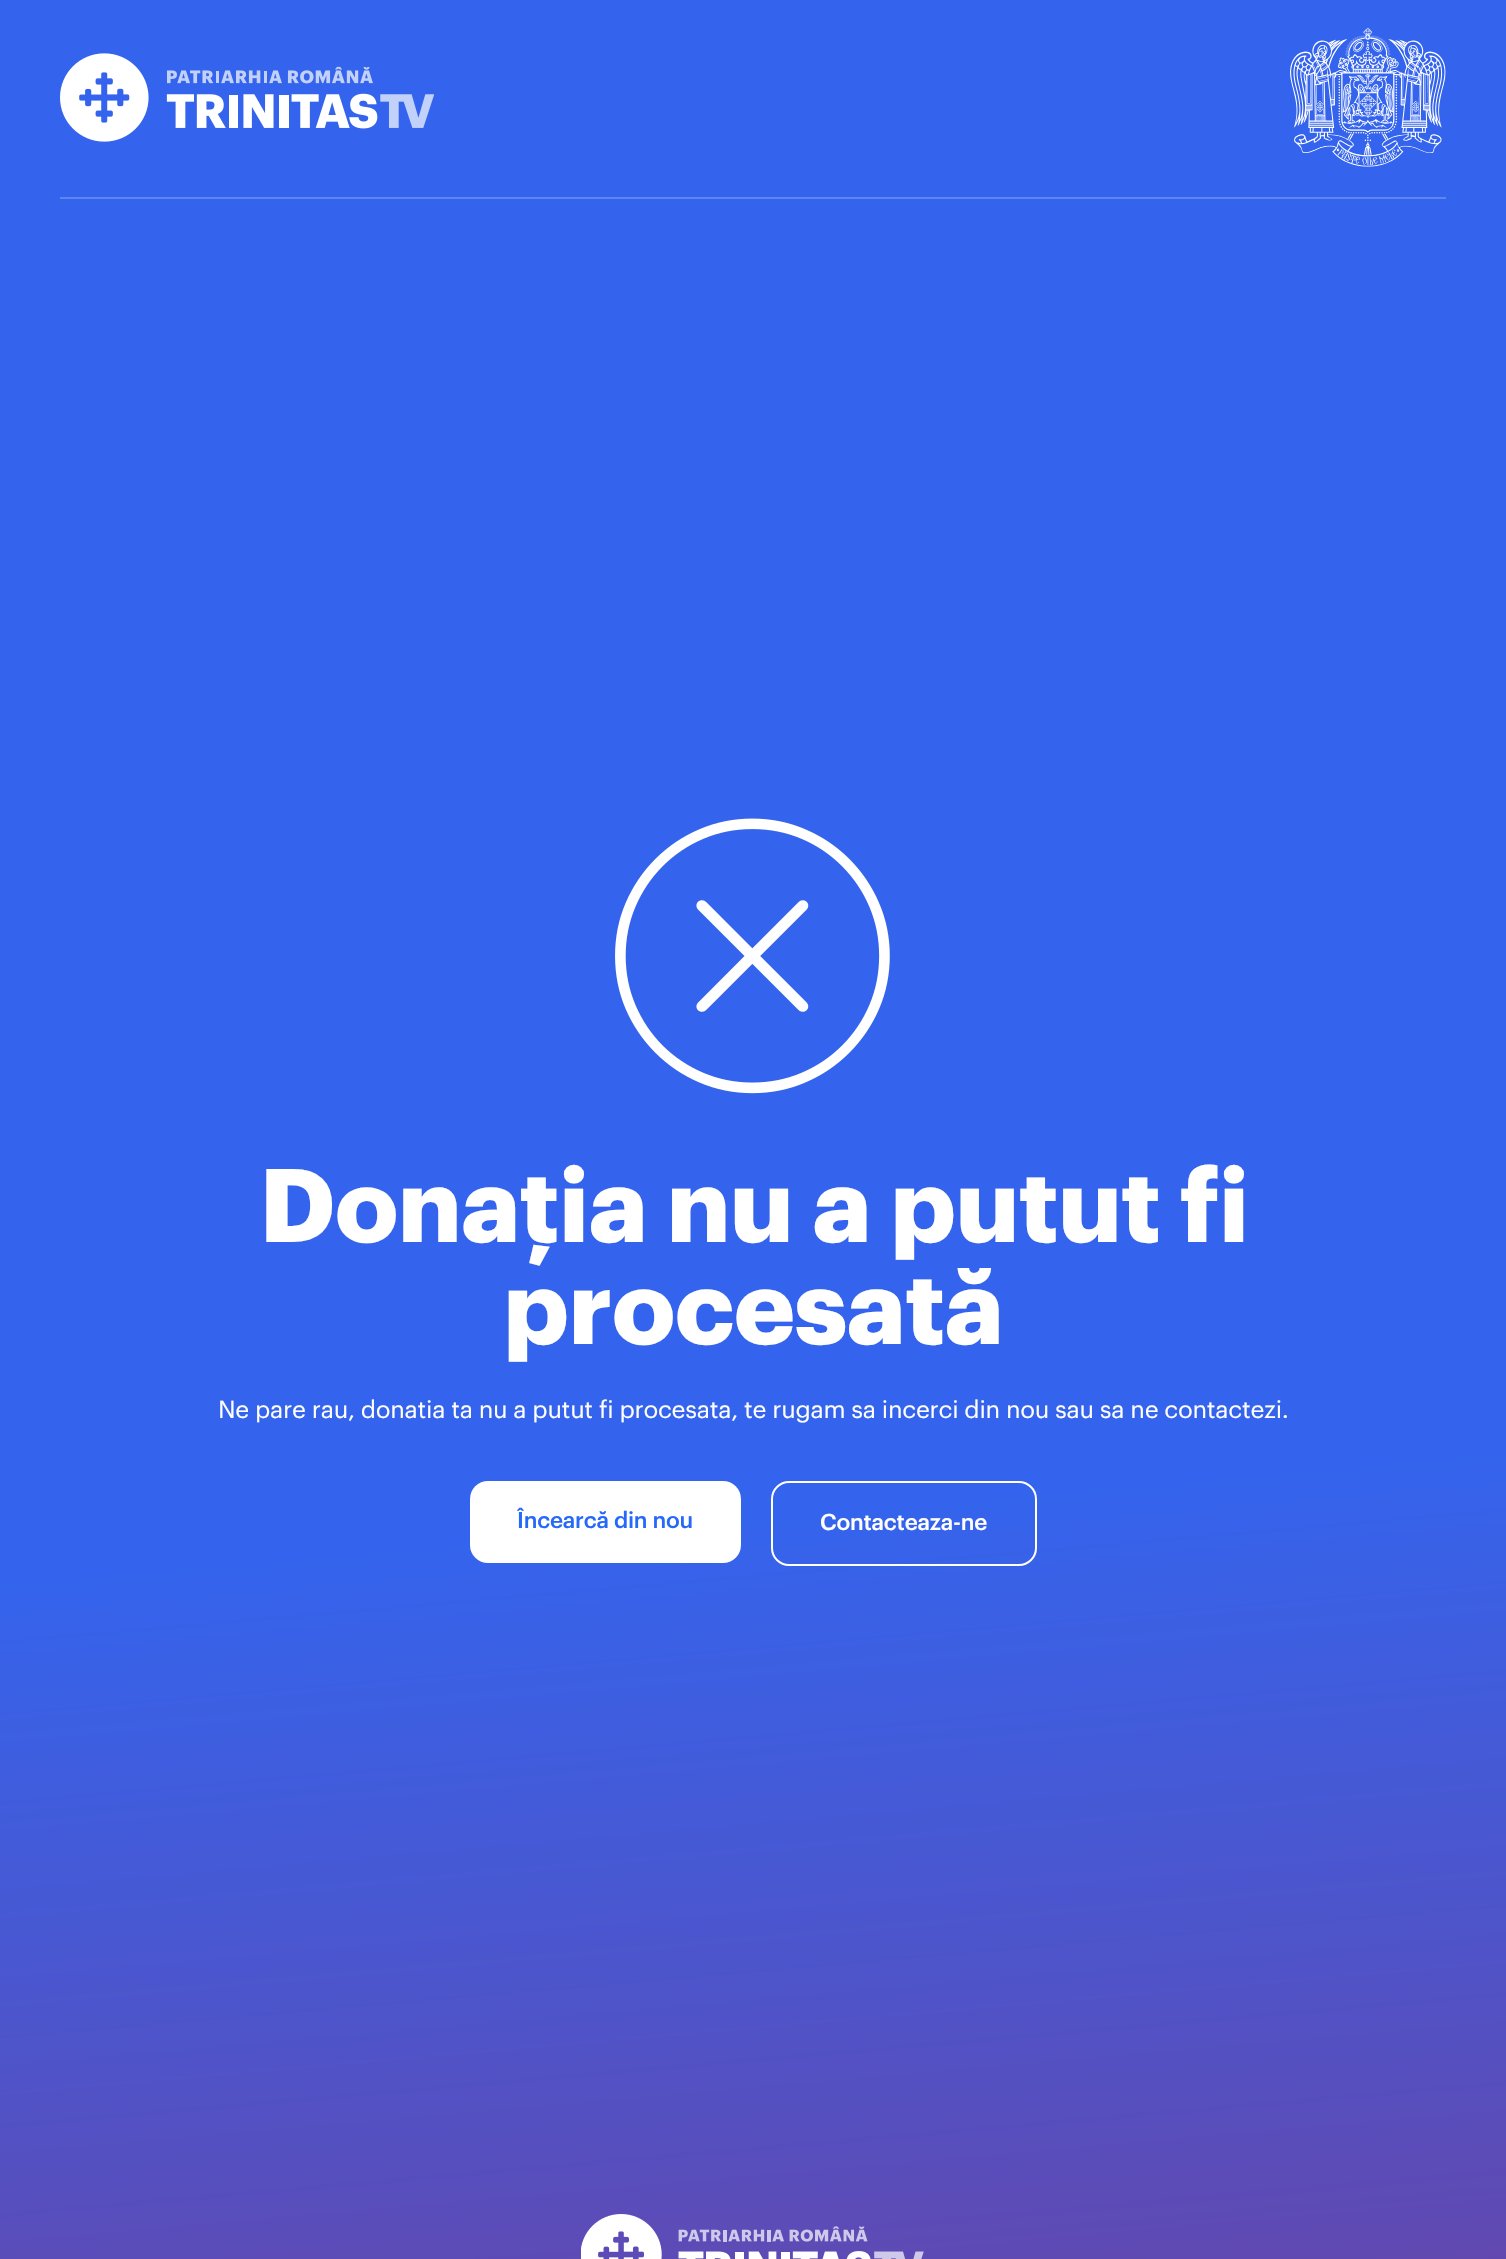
void draw(SkCanvas* canvas) {
    SkPaint paint;
    paint.setAntiAlias(true);
    auto spacedText = [&](const char* s, float x, float y, const SkFont& font, const SkPaint& ink, float letter, float word) {
        std::vector<SkGlyphID> glyphs(font.countText(s, strlen(s), SkTextEncoding::kUTF8));
        std::vector<float> xs(glyphs.size());
        font.textToGlyphs(s, strlen(s), SkTextEncoding::kUTF8, glyphs);
        font.getXPos(glyphs, xs, x);
        float extra = 0;
        for (size_t i = 0; i < glyphs.size(); i++) {
            xs[i] += extra;
            extra += letter + word * (glyphs[i] == font.unicharToGlyph(' '));
        }
        canvas->drawTextBlob(SkTextBlob::MakeFromPosHGlyphs(glyphs, xs, y, font), 0, 0, ink);
    };
    canvas->clear(0xFFFFFFFF);
    {
        const SkColor colors[] = {0xFF3464ED, 0xFF6A43A4};
        const float stops[] = {0.62f, 1};
        const SkPoint ends[] = {{642, -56}, {864, 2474}};
        paint.setShader(SkGradientShader::MakeLinear(ends, colors, stops, 2, SkTileMode::kClamp));
        paint.setAlpha(255);
    }
    canvas->drawRect(SkRect::MakeXYWH(0, 0, 1506, 2259), paint);
    paint.setShader(nullptr);
    paint.setColor(0xFF5F85F1);
    canvas->drawRect(SkRect::MakeXYWH(60, 197, 1386, 2), paint);
    canvas->drawImageRect(SkImages::DeferredFromEncodedData(SkData::MakeFromFileName("img1.png")), SkRect::MakeXYWH(60, 53, 374, 89), SkSamplingOptions());
    canvas->drawImageRect(SkImages::DeferredFromEncodedData(SkData::MakeFromFileName("img2.png")), SkRect::MakeXYWH(1290, 27, 156, 140), SkSamplingOptions());
    canvas->drawImageRect(SkImages::DeferredFromEncodedData(SkData::MakeFromFileName("img3.png")), SkRect::MakeXYWH(615, 818, 275, 276), SkSamplingOptions());
    SkFont font1(fontMgr->matchFamilyStyle("Graphik", SkFontStyle::Bold()), 102);
    font1.setSubpixel(true);
    paint.setColor(0xFFFFFFFF);
    spacedText("Donația nu a putut fi", 259, 1242, font1, paint, -1.2f, 0.5f);
    spacedText("procesată", 503, 1344, font1, paint, -1.2f, 0);
    SkFont font2(fontMgr->matchFamilyStyle("Graphik", SkFontStyle::Normal()), 24);
    font2.setSubpixel(true);
    spacedText("Ne pare rau, donatia ta nu a putut fi procesata, te rugam sa incerci din nou sau sa ne contactezi.", 218, 1418, font2, paint, -0.3f, 0);
    canvas->drawRoundRect(SkRect::MakeXYWH(470, 1481, 271, 82), 18, 18, paint);
    SkFont font3(fontMgr->matchFamilyStyle("Graphik", SkFontStyle(500, SkFontStyle::kNormal_Width, SkFontStyle::kUpright_Slant)), 22.5f);
    font3.setSubpixel(true);
    paint.setColor(0xFF2669F9);
    spacedText("Încearcă din nou", 517, 1528, font3, paint, -0.3f, 0);
    paint.setStyle(SkPaint::kStroke_Style);
    paint.setStrokeWidth(2);
    paint.setColor(0xFFFFFFFF);
    canvas->drawRoundRect(SkRect::MakeXYWH(772, 1482, 264, 83), 17, 17, paint);
    paint.setStyle(SkPaint::kFill_Style);
    spacedText("Contacteaza-ne", 820, 1530, font3, paint, -0.3f, 0);
    canvas->drawImageRect(SkImages::DeferredFromEncodedData(SkData::MakeFromFileName("img4.png")), SkRect::MakeXYWH(581, 2214, 343, 45), SkSamplingOptions());
}
